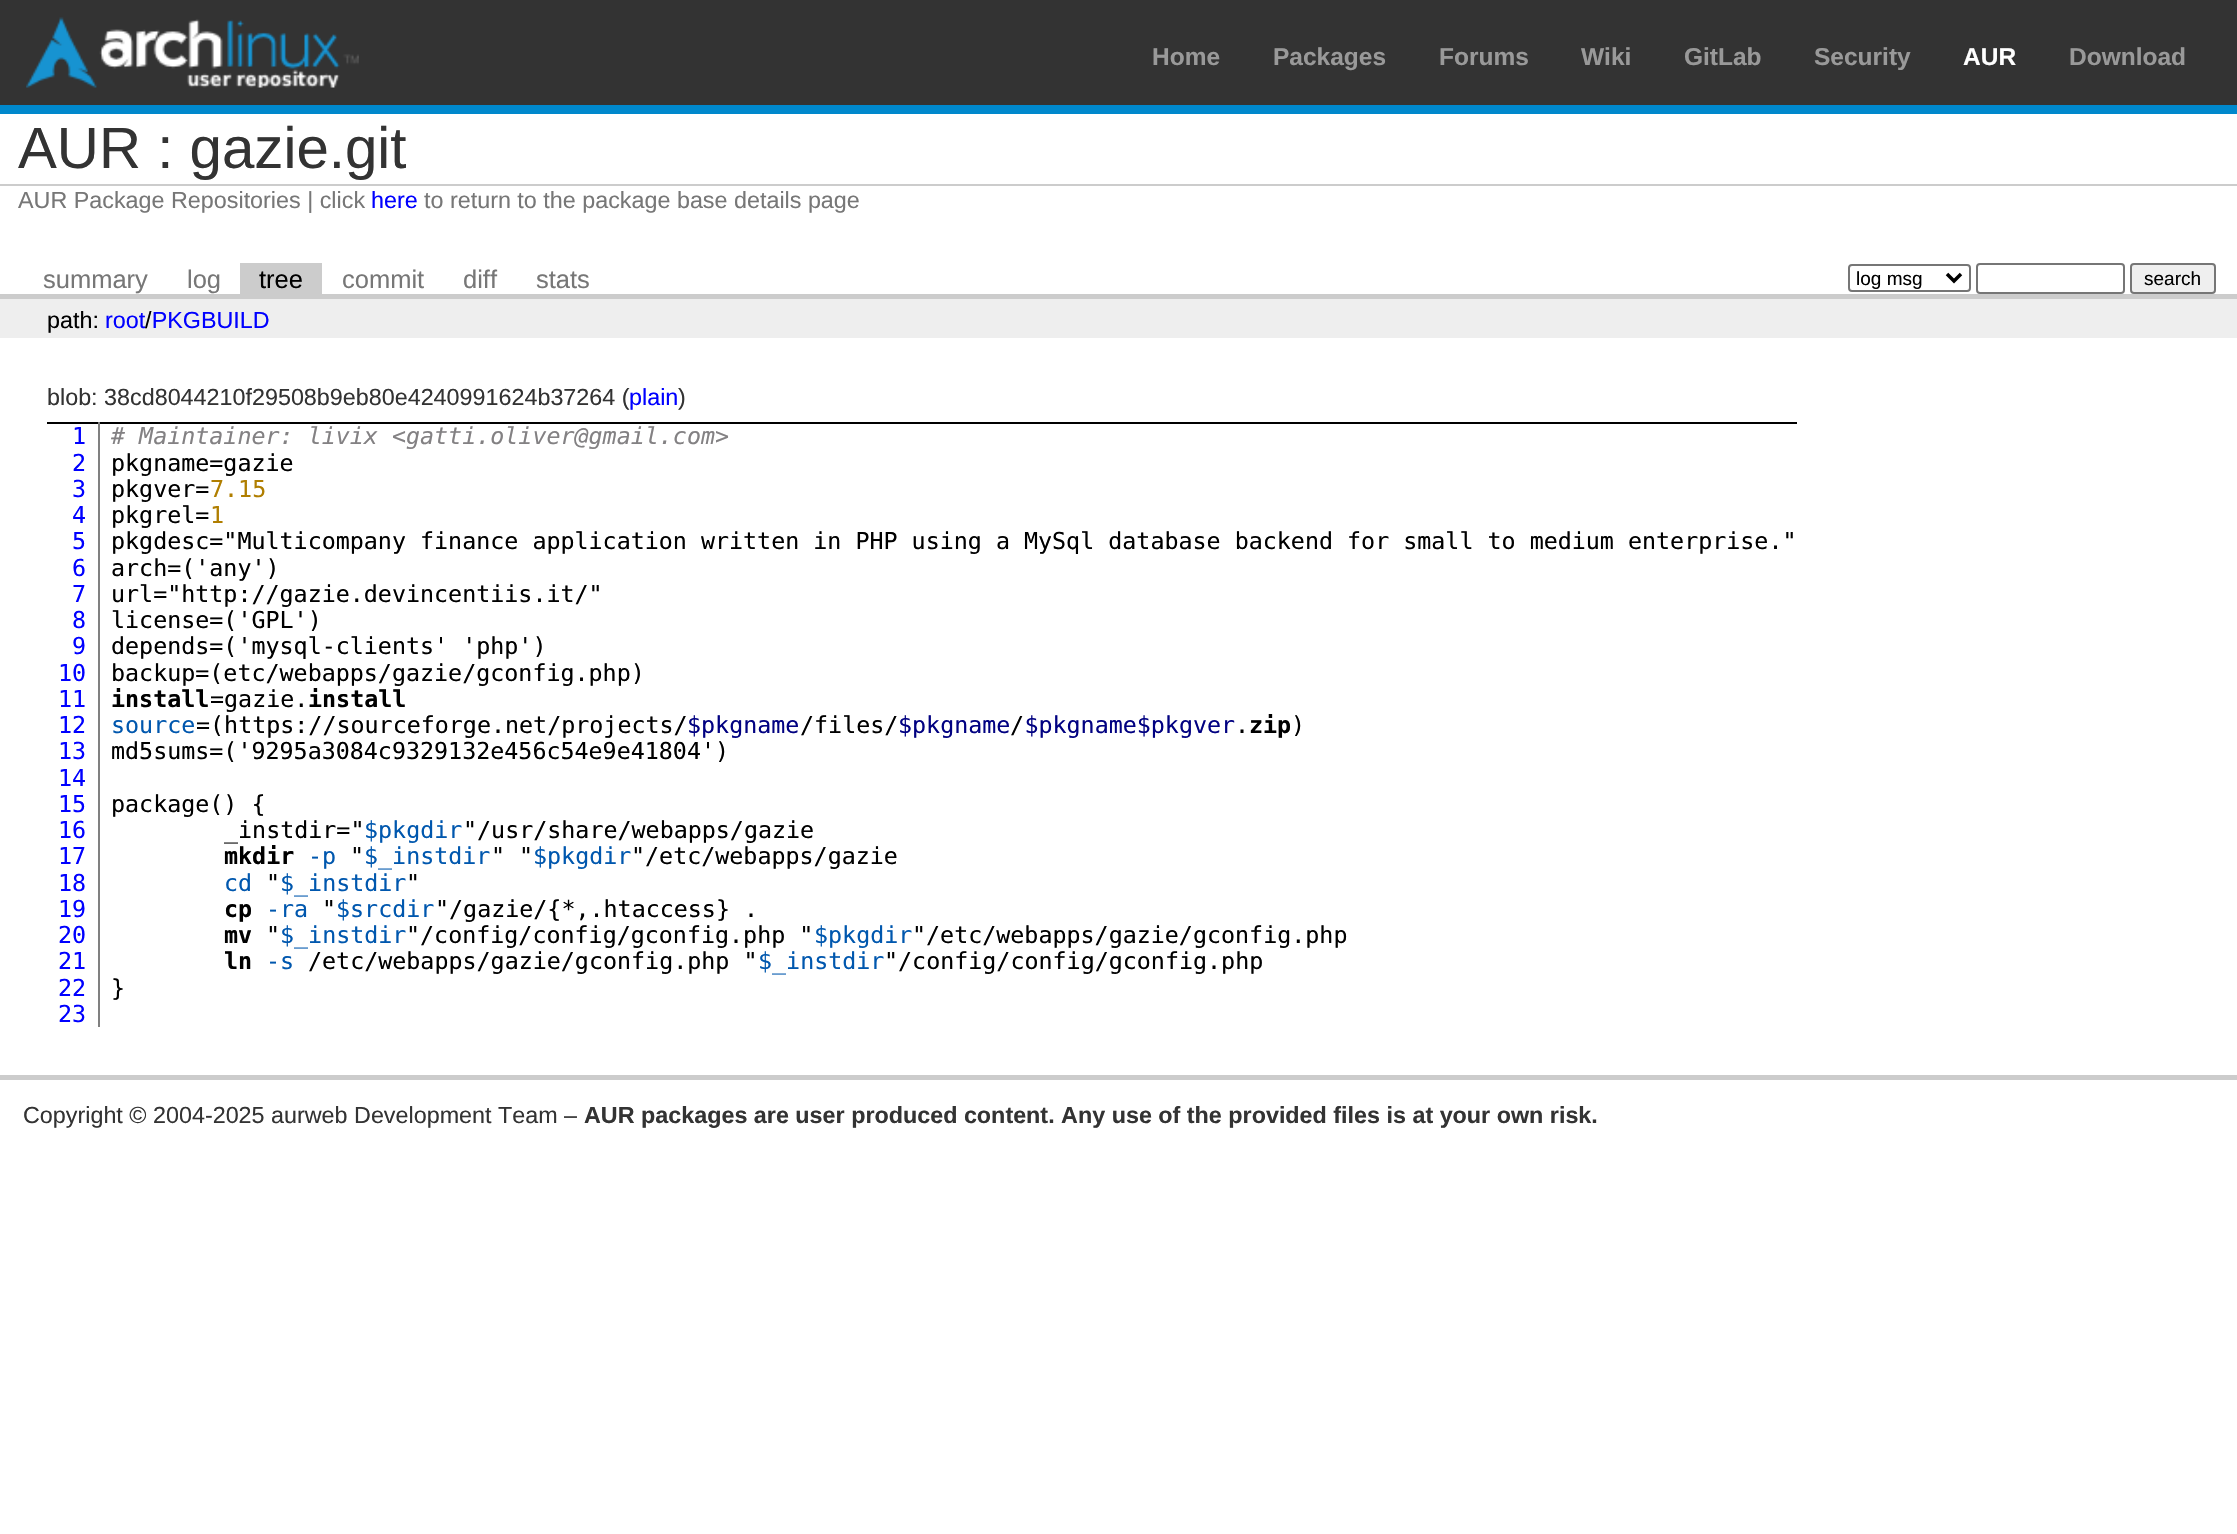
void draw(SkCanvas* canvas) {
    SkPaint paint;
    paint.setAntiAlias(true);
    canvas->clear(0xFFFFFFFF);
    paint.setColor(0xFF333333);
    canvas->drawRect(SkRect::MakeXYWH(0, 0, 2237, 105), paint);
    paint.setColor(0xFF0088CC);
    canvas->drawRect(SkRect::MakeXYWH(0, 105, 2237, 9), paint);
    canvas->drawImageRect(SkImages::DeferredFromEncodedData(SkData::MakeFromFileName("img1.png")), SkRect::MakeXYWH(26, 17, 333, 71), SkSamplingOptions());
    SkFont font1(fontMgr->matchFamilyStyle("Liberation Sans", SkFontStyle::Bold()), 24.5f);
    font1.setSubpixel(true);
    paint.setColor(0xFF999999);
    canvas->drawString("Home", 1152, 65, font1, paint);
    canvas->drawString("Packages", 1273, 65, font1, paint);
    canvas->drawString("Forums", 1439, 65, font1, paint);
    canvas->drawString("Wiki", 1581, 65, font1, paint);
    canvas->drawString("GitLab", 1684, 65, font1, paint);
    canvas->drawString("Security", 1814, 65, font1, paint);
    paint.setColor(0xFFFFFFFF);
    canvas->drawString("AUR", 1963, 65, font1, paint);
    paint.setColor(0xFF999999);
    canvas->drawString("Download", 2069, 65, font1, paint);
    SkFont font2(fontMgr->matchFamilyStyle("Liberation Sans", SkFontStyle::Normal()), 58.25f);
    font2.setSubpixel(true);
    paint.setColor(0xFF333333);
    canvas->drawString("AUR : gazie.git", 18, 168, font2, paint);
    paint.setColor(0xFFCCCCCC);
    canvas->drawRect(SkRect::MakeXYWH(0, 184, 2237, 2), paint);
    SkFont font3(fontMgr->matchFamilyStyle("Liberation Sans", SkFontStyle::Normal()), 23.33f);
    font3.setSubpixel(true);
    paint.setColor(0xFF777777);
    canvas->drawString("AUR Package Repositories | click", 18, 208, font3, paint);
    paint.setColor(0xFF0000FF);
    canvas->drawString("here", 371, 208, font3, paint);
    paint.setColor(0xFF777777);
    canvas->drawString("to return to the package base details page", 424, 208, font3, paint);
    paint.setColor(0xFFCCCCCC);
    canvas->drawRect(SkRect::MakeXYWH(0, 294, 2237, 5), paint);
    SkFont font4(fontMgr->matchFamilyStyle("Liberation Sans", SkFontStyle::Normal()), 25.5f);
    font4.setSubpixel(true);
    paint.setColor(0xFF777777);
    canvas->drawString("summary", 43, 288, font4, paint);
    canvas->drawString("log", 187, 288, font4, paint);
    paint.setColor(0xFFCCCCCC);
    canvas->drawRect(SkRect::MakeXYWH(240, 263, 82, 31), paint);
    paint.setColor(0xFF000000);
    canvas->drawString("tree", 259, 288, font4, paint);
    paint.setColor(0xFF777777);
    canvas->drawString("commit", 342, 288, font4, paint);
    canvas->drawString("diff", 463, 288, font4, paint);
    canvas->drawString("stats", 536, 288, font4, paint);
    paint.setStyle(SkPaint::kStroke_Style);
    paint.setStrokeWidth(2);
    paint.setColor(0xFF767676);
    canvas->drawRoundRect(SkRect::MakeXYWH(1849, 265, 121, 26), 3, 3, paint);
    paint.setStrokeWidth(3.5f);
    paint.setColor(0xFF000000);
    canvas->drawPath(SkPathBuilder().moveTo(1947, 274).lineTo(1954, 281).lineTo(1961, 274).detach(), paint);
    SkFont font5(fontMgr->matchFamilyStyle("Liberation Sans", SkFontStyle::Normal()), 19);
    font5.setSubpixel(true);
    paint.setStyle(SkPaint::kFill_Style);
    canvas->drawString("log msg", 1856, 285, font5, paint);
    paint.setStyle(SkPaint::kStroke_Style);
    paint.setStrokeWidth(2);
    paint.setColor(0xFF767676);
    canvas->drawRoundRect(SkRect::MakeXYWH(1977, 264, 147, 29), 3, 3, paint);
    paint.setStyle(SkPaint::kFill_Style);
    paint.setColor(0xFFEFEFEF);
    canvas->drawRoundRect(SkRect::MakeXYWH(2131, 264, 84, 29), 3, 3, paint);
    paint.setStyle(SkPaint::kStroke_Style);
    paint.setColor(0xFF767676);
    canvas->drawRoundRect(SkRect::MakeXYWH(2131, 264, 84, 29), 3, 3, paint);
    paint.setStyle(SkPaint::kFill_Style);
    paint.setColor(0xFF000000);
    canvas->drawString("search", 2144, 285, font5, paint);
    paint.setColor(0xFFEEEEEE);
    canvas->drawRect(SkRect::MakeXYWH(0, 299, 2237, 39), paint);
    paint.setColor(0xFF000000);
    canvas->drawString("path:", 47, 328, font3, paint);
    paint.setColor(0xFF0000FF);
    canvas->drawString("root PKGBUILD", 105, 328, font3, paint);
    paint.setColor(0xFF000000);
    canvas->drawString("/", 145, 328, font3, paint);
    paint.setColor(0xFFCCCCCC);
    canvas->drawRect(SkRect::MakeXYWH(0, 1075, 2237, 5), paint);
    paint.setColor(0xFF333333);
    canvas->drawString("blob: 38cd8044210f29508b9eb80e4240991624b37264 (", 47, 405, font3, paint);
    paint.setColor(0xFF0000FF);
    canvas->drawString("plain", 629, 405, font3, paint);
    paint.setColor(0xFF333333);
    canvas->drawString(")", 678, 405, font3, paint);
    paint.setColor(0xFF000000);
    canvas->drawRect(SkRect::MakeXYWH(47, 422, 1750, 2), paint);
    paint.setColor(0xFF808080);
    canvas->drawRect(SkRect::MakeXYWH(98, 422, 2, 605), paint);
    SkFont font6(fontMgr->matchFamilyStyle("DejaVu Sans Mono", SkFontStyle::Normal()), 23.33f);
    font6.setSubpixel(true);
    paint.setColor(0xFF0000FF);
    canvas->drawString("1", 72, 444, font6, paint);
    canvas->drawString("2", 72, 471, font6, paint);
    canvas->drawString("3", 72, 497, font6, paint);
    canvas->drawString("4", 72, 523, font6, paint);
    canvas->drawString("5", 72, 549, font6, paint);
    canvas->drawString("6", 72, 576, font6, paint);
    canvas->drawString("7", 72, 602, font6, paint);
    canvas->drawString("8", 72, 628, font6, paint);
    canvas->drawString("9", 72, 654, font6, paint);
    canvas->drawString("10", 58, 681, font6, paint);
    canvas->drawString("11", 58, 707, font6, paint);
    canvas->drawString("12", 58, 733, font6, paint);
    canvas->drawString("13", 58, 759, font6, paint);
    canvas->drawString("14", 58, 786, font6, paint);
    canvas->drawString("15", 58, 812, font6, paint);
    canvas->drawString("16", 58, 838, font6, paint);
    canvas->drawString("17", 58, 864, font6, paint);
    canvas->drawString("18", 58, 891, font6, paint);
    canvas->drawString("19", 58, 917, font6, paint);
    canvas->drawString("20", 58, 943, font6, paint);
    canvas->drawString("21", 58, 969, font6, paint);
    canvas->drawString("22", 58, 996, font6, paint);
    canvas->drawString("23", 58, 1022, font6, paint);
    SkFont font7(fontMgr->matchFamilyStyle("DejaVu Sans Mono", SkFontStyle::Italic()), 23.33f);
    font7.setSubpixel(true);
    paint.setColor(0xFF838183);
    canvas->drawString("# Maintainer: livix <gatti.oliver@gmail.com>", 111, 444, font7, paint);
    paint.setColor(0xFF000000);
    canvas->drawString("pkgname=gazie", 111, 471, font6, paint);
    canvas->drawString("pkgver=", 111, 497, font6, paint);
    paint.setColor(0xFFB07E00);
    canvas->drawString("7.15", 210, 497, font6, paint);
    paint.setColor(0xFF000000);
    canvas->drawString("pkgrel=", 111, 523, font6, paint);
    paint.setColor(0xFFB07E00);
    canvas->drawString("1", 210, 523, font6, paint);
    paint.setColor(0xFF000000);
    canvas->drawString("pkgdesc=\"Multicompany finance application written in PHP using a MySql database backend for small to medium enterprise.\"", 111, 549, font6, paint);
    canvas->drawString("arch=('any')", 111, 576, font6, paint);
    canvas->drawString("url=\"http://gazie.devincentiis.it/\"", 111, 602, font6, paint);
    canvas->drawString("license=('GPL')", 111, 628, font6, paint);
    canvas->drawString("depends=('mysql-clients' 'php')", 111, 654, font6, paint);
    canvas->drawString("backup=(etc/webapps/gazie/gconfig.php)", 111, 681, font6, paint);
    SkFont font8(fontMgr->matchFamilyStyle("DejaVu Sans Mono", SkFontStyle::Bold()), 23.33f);
    font8.setSubpixel(true);
    canvas->drawString("install", 111, 707, font8, paint);
    canvas->drawString("=gazie.", 210, 707, font6, paint);
    canvas->drawString("install", 308, 707, font8, paint);
    canvas->drawString("=(https://sourceforge.net/projects/", 196, 733, font6, paint);
    paint.setColor(0xFF010181);
    canvas->drawString("$pkgname", 687, 733, font6, paint);
    paint.setColor(0xFF000000);
    canvas->drawString("/files/", 800, 733, font6, paint);
    paint.setColor(0xFF010181);
    canvas->drawString("$pkgname $pkgname$pkgver", 898, 733, font6, paint);
    paint.setColor(0xFF000000);
    canvas->drawString("zip", 1249, 733, font8, paint);
    canvas->drawString(")", 1291, 733, font6, paint);
    paint.setColor(0xFF0057AE);
    canvas->drawString("source", 111, 733, font6, paint);
    paint.setColor(0xFF000000);
    canvas->drawString("/", 1010, 733, font6, paint);
    canvas->drawString(".", 1235, 733, font6, paint);
    canvas->drawString("md5sums=('9295a3084c9329132e456c54e9e41804')", 111, 759, font6, paint);
    canvas->drawString("package() {", 111, 812, font6, paint);
    canvas->drawString("_instdir=\"", 224, 838, font6, paint);
    paint.setColor(0xFF0057AE);
    canvas->drawString("$pkgdir", 364, 838, font6, paint);
    paint.setColor(0xFF000000);
    canvas->drawString("\"/usr/share/webapps/gazie", 463, 838, font6, paint);
    canvas->drawString("mkdir", 224, 864, font8, paint);
    paint.setColor(0xFF0057AE);
    canvas->drawString("-p", 308, 864, font6, paint);
    paint.setColor(0xFF000000);
    canvas->drawString("\"", 350, 864, font6, paint);
    paint.setColor(0xFF0057AE);
    canvas->drawString("$_instdir", 364, 864, font6, paint);
    paint.setColor(0xFF000000);
    canvas->drawString("\" \"", 491, 864, font6, paint);
    paint.setColor(0xFF0057AE);
    canvas->drawString("$pkgdir", 533, 864, font6, paint);
    paint.setColor(0xFF000000);
    canvas->drawString("\"/etc/webapps/gazie", 631, 864, font6, paint);
    paint.setColor(0xFF0057AE);
    canvas->drawString("cd", 224, 891, font6, paint);
    paint.setColor(0xFF000000);
    canvas->drawString("\"", 266, 891, font6, paint);
    paint.setColor(0xFF0057AE);
    canvas->drawString("$_instdir", 280, 891, font6, paint);
    paint.setColor(0xFF000000);
    canvas->drawString("\"", 406, 891, font6, paint);
    canvas->drawString("cp", 224, 917, font8, paint);
    paint.setColor(0xFF0057AE);
    canvas->drawString("-ra", 266, 917, font6, paint);
    paint.setColor(0xFF000000);
    canvas->drawString("\"", 322, 917, font6, paint);
    paint.setColor(0xFF0057AE);
    canvas->drawString("$srcdir", 336, 917, font6, paint);
    paint.setColor(0xFF000000);
    canvas->drawString("\"/gazie/{*,.htaccess} .", 435, 917, font6, paint);
    canvas->drawString("mv", 224, 943, font8, paint);
    canvas->drawString("\"", 266, 943, font6, paint);
    paint.setColor(0xFF0057AE);
    canvas->drawString("$_instdir", 280, 943, font6, paint);
    paint.setColor(0xFF000000);
    canvas->drawString("\"/config/config/gconfig.php \"", 406, 943, font6, paint);
    paint.setColor(0xFF0057AE);
    canvas->drawString("$pkgdir", 814, 943, font6, paint);
    paint.setColor(0xFF000000);
    canvas->drawString("\"/etc/webapps/gazie/gconfig.php", 912, 943, font6, paint);
    canvas->drawString("ln", 224, 969, font8, paint);
    paint.setColor(0xFF0057AE);
    canvas->drawString("-s", 266, 969, font6, paint);
    paint.setColor(0xFF000000);
    canvas->drawString("/etc/webapps/gazie/gconfig.php \"", 308, 969, font6, paint);
    paint.setColor(0xFF0057AE);
    canvas->drawString("$_instdir", 758, 969, font6, paint);
    paint.setColor(0xFF000000);
    canvas->drawString("\"/config/config/gconfig.php", 884, 969, font6, paint);
    canvas->drawString("}", 111, 996, font6, paint);
    paint.setColor(0xFF333333);
    canvas->drawString("Copyright © 2004-2025 aurweb Development Team –", 23, 1123, font3, paint);
    SkFont font9(fontMgr->matchFamilyStyle("Liberation Sans", SkFontStyle::Bold()), 23.33f);
    font9.setSubpixel(true);
    canvas->drawString("AUR packages are user produced content. Any use of the provided files is at your own risk.", 584, 1123, font9, paint);
}
